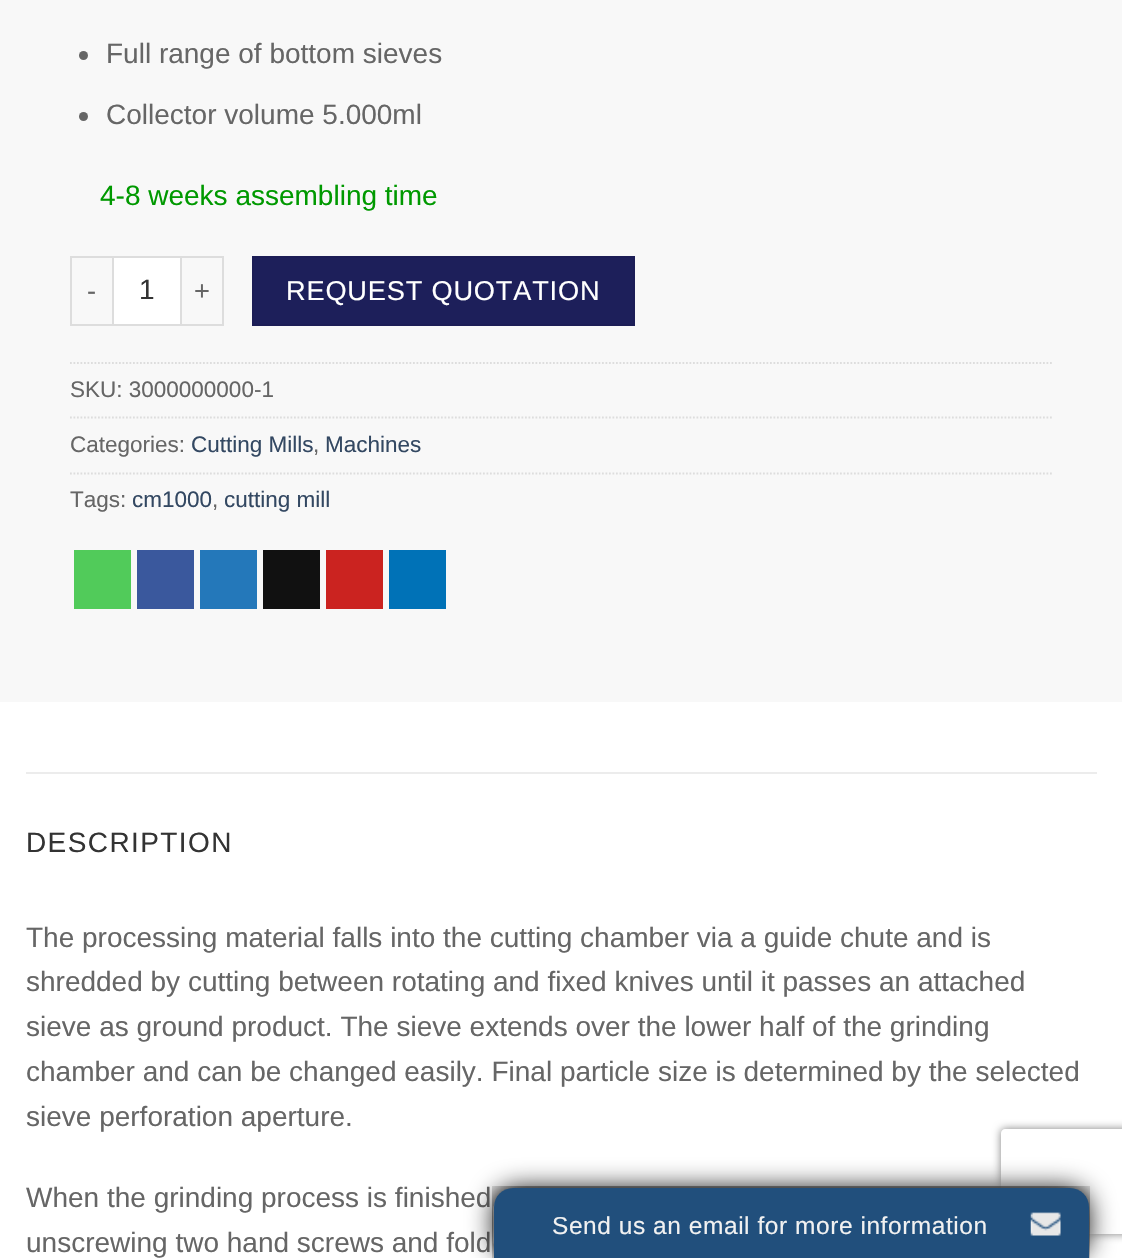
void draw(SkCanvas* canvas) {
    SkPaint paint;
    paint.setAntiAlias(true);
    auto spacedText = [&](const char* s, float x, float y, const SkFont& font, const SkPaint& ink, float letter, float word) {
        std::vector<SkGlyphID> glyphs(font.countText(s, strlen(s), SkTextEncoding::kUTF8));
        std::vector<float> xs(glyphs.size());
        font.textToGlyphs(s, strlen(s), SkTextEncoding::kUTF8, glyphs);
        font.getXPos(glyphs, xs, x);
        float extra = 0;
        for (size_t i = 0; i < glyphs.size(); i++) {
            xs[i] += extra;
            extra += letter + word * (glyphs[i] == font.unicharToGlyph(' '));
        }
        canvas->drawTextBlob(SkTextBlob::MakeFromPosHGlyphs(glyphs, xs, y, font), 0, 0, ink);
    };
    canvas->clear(0xFFFFFFFF);
    paint.setColor(0xFFF8F8F8);
    canvas->drawRect(SkRect::MakeXYWH(0, 0, 1122, 702), paint);
    paint.setColor(0xFF666666);
    canvas->drawCircle(83.5f, 55.5f, 4.5f, paint);
    SkFont font1(fontMgr->matchFamilyStyle("Liberation Sans", SkFontStyle::Normal()), 28);
    font1.setSubpixel(true);
    canvas->drawString("Full range of bottom sieves", 106, 63, font1, paint);
    canvas->drawCircle(83.5f, 116.5f, 4.5f, paint);
    canvas->drawString("Collector volume 5.000ml", 106, 124, font1, paint);
    paint.setColor(0xFF009900);
    canvas->drawString("4-8 weeks assembling time", 100, 205, font1, paint);
    paint.setColor(0xFFDDDDDD);
    canvas->drawRect(SkRect::MakeXYWH(70, 256, 42, 2), paint);
    canvas->drawRect(SkRect::MakeXYWH(70, 324, 42, 2), paint);
    canvas->drawRect(SkRect::MakeXYWH(70, 256, 2, 70), paint);
    SkFont font2(fontMgr->matchFamilyStyle("Liberation Sans", SkFontStyle::Normal()), 27.2f);
    font2.setSubpixel(true);
    paint.setColor(0xFF666666);
    spacedText("-", 87, 300, font2, paint, 0.8f, 0);
    paint.setColor(0xFFFFFFFF);
    canvas->drawRect(SkRect::MakeXYWH(113, 257, 68, 68), paint);
    paint.setStyle(SkPaint::kStroke_Style);
    paint.setStrokeWidth(2);
    paint.setColor(0xFFDDDDDD);
    canvas->drawRect(SkRect::MakeXYWH(113, 257, 68, 68), paint);
    paint.setStyle(SkPaint::kFill_Style);
    paint.setColor(0xFF333333);
    canvas->drawString("1", 139, 299, font1, paint);
    paint.setColor(0xFFDDDDDD);
    canvas->drawRect(SkRect::MakeXYWH(182, 256, 42, 2), paint);
    canvas->drawRect(SkRect::MakeXYWH(222, 256, 2, 70), paint);
    canvas->drawRect(SkRect::MakeXYWH(182, 324, 42, 2), paint);
    paint.setColor(0xFF666666);
    spacedText("+", 194, 300, font2, paint, 0.8f, 0);
    paint.setColor(0xFF1D1F5A);
    canvas->drawRect(SkRect::MakeXYWH(253, 257, 381, 68), paint);
    paint.setStyle(SkPaint::kStroke_Style);
    paint.setColor(0xFF1C1D56);
    canvas->drawRect(SkRect::MakeXYWH(253, 257, 381, 68), paint);
    paint.setStyle(SkPaint::kFill_Style);
    paint.setColor(0xFFFFFFFF);
    spacedText("REQUEST QUOTATION", 286, 300, font2, paint, 0.8f, 0);
    paint.setStyle(SkPaint::kStroke_Style);
    paint.setStrokeWidth(1.8f);
    paint.setColor(0xFFDDDDDD);
    paint.setPathEffect(SkDashPathEffect::Make({{1.75f, 1.75f}}, 0));
    canvas->drawPath(SkPathBuilder().moveTo(70, 363).lineTo(1053.5f, 363).detach(), paint);
    paint.setPathEffect(nullptr);
    SkFont font3(fontMgr->matchFamilyStyle("Liberation Sans", SkFontStyle::Normal()), 22.5f);
    font3.setSubpixel(true);
    paint.setStyle(SkPaint::kFill_Style);
    paint.setColor(0xFF666666);
    canvas->drawString("SKU: 3000000000-1", 70, 397, font3, paint);
    paint.setStyle(SkPaint::kStroke_Style);
    paint.setColor(0xFFDDDDDD);
    paint.setPathEffect(SkDashPathEffect::Make({{1.75f, 1.75f}}, 0));
    canvas->drawPath(SkPathBuilder().moveTo(70, 417.5f).lineTo(1053.5f, 417.5f).detach(), paint);
    paint.setPathEffect(nullptr);
    paint.setStyle(SkPaint::kFill_Style);
    paint.setColor(0xFF666666);
    canvas->drawString("Categories:", 70, 452, font3, paint);
    paint.setColor(0xFF334862);
    canvas->drawString("Cutting Mills", 191, 452, font3, paint);
    paint.setColor(0xFF666666);
    canvas->drawString(",", 313, 452, font3, paint);
    paint.setColor(0xFF334862);
    canvas->drawString("Machines", 325, 452, font3, paint);
    paint.setStyle(SkPaint::kStroke_Style);
    paint.setColor(0xFFDDDDDD);
    paint.setPathEffect(SkDashPathEffect::Make({{1.75f, 1.75f}}, 0));
    canvas->drawPath(SkPathBuilder().moveTo(70, 473.5f).lineTo(1053.5f, 473.5f).detach(), paint);
    paint.setPathEffect(nullptr);
    paint.setStyle(SkPaint::kFill_Style);
    paint.setColor(0xFF666666);
    canvas->drawString("Tags:", 70, 507, font3, paint);
    paint.setColor(0xFF334862);
    canvas->drawString("cm1000", 132, 507, font3, paint);
    paint.setColor(0xFF666666);
    canvas->drawString(",", 212, 507, font3, paint);
    paint.setColor(0xFF334862);
    canvas->drawString("cutting mill", 224, 507, font3, paint);
    paint.setColor(0xFF51CB5A);
    canvas->drawRect(SkRect::MakeXYWH(74, 550, 57, 59), paint);
    paint.setColor(0xFF3A589D);
    canvas->drawRect(SkRect::MakeXYWH(137, 550, 57, 59), paint);
    paint.setColor(0xFF2478BA);
    canvas->drawRect(SkRect::MakeXYWH(200, 550, 57, 59), paint);
    paint.setColor(0xFF111111);
    canvas->drawRect(SkRect::MakeXYWH(263, 550, 57, 59), paint);
    paint.setColor(0xFFCB2320);
    canvas->drawRect(SkRect::MakeXYWH(326, 550, 57, 59), paint);
    paint.setColor(0xFF0072B7);
    canvas->drawRect(SkRect::MakeXYWH(389, 550, 57, 59), paint);
    paint.setColor(0xFFECECEC);
    canvas->drawRect(SkRect::MakeXYWH(26, 772, 1071, 2), paint);
    paint.setColor(0xFF333333);
    spacedText("DESCRIPTION", 26, 852, font1, paint, 1.4f, 0);
    paint.setColor(0xFF666666);
    canvas->drawString("The processing material falls into the cutting chamber via a guide chute and is", 26, 947, font1, paint);
    canvas->drawString("shredded by cutting between rotating and fixed knives until it passes an attached", 26, 991, font1, paint);
    canvas->drawString("sieve as ground product. The sieve extends over the lower half of the grinding", 26, 1036, font1, paint);
    canvas->drawString("chamber and can be changed easily. Final particle size is determined by the selected", 26, 1081, font1, paint);
    canvas->drawString("sieve perforation aperture.", 26, 1126, font1, paint);
    canvas->drawString("When the grinding process is finished", 26, 1207, font1, paint);
    canvas->drawString("unscrewing two hand screws and fold", 26, 1252, font1, paint);
    paint.setColor(0xFF111111);
    paint.setMaskFilter(SkMaskFilter::MakeBlur(kNormal_SkBlurStyle, 13));
    canvas->drawRoundRect(SkRect::MakeXYWH(494, 1188, 595, 70), 23, 23, paint);
    paint.setMaskFilter(nullptr);
    canvas->save();
    canvas->clipPath(SkPathBuilder(SkPathFillType::kEvenOdd).moveTo(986, 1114).lineTo(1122, 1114).lineTo(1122, 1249).lineTo(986, 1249).close().moveTo(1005, 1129).lineTo(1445, 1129).cubicTo(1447, 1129, 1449, 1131, 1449, 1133).lineTo(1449, 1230).cubicTo(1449, 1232, 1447, 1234, 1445, 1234).lineTo(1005, 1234).cubicTo(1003, 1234, 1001, 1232, 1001, 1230).lineTo(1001, 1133).cubicTo(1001, 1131, 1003, 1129, 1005, 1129).close().detach(), true);
    paint.setColor(0xFF808080);
    paint.setMaskFilter(SkMaskFilter::MakeBlur(kNormal_SkBlurStyle, 4.5f));
    canvas->drawRoundRect(SkRect::MakeXYWH(1001, 1129, 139, 105), 4, 4, paint);
    paint.setMaskFilter(nullptr);
    canvas->restore();
    canvas->drawImageRect(SkImages::DeferredFromEncodedData(SkData::MakeFromFileName("img1.png")), SkRect::MakeXYWH(492, 1186, 598, 72), SkSamplingOptions());
    paint.setColor(0xFF214F7C);
    canvas->drawPath(SkPathBuilder().moveTo(513, 1188).lineTo(1070, 1188).cubicTo(1080.5f, 1188, 1089, 1196.5f, 1089, 1207).lineTo(1089, 1258).lineTo(494, 1258).lineTo(494, 1207).cubicTo(494, 1196.5f, 502.5f, 1188, 513, 1188).close().detach(), paint);
    SkFont font4(fontMgr->matchFamilyStyle("Liberation Sans", SkFontStyle::Normal()), 24.5f);
    font4.setSubpixel(true);
    paint.setColor(0xFFF1F1F1);
    spacedText("Send us an email for more information", 552, 1234, font4, paint, 0.55f, 0);
    canvas->drawImageRect(SkImages::DeferredFromEncodedData(SkData::MakeFromFileName("img2.png")), SkRect::MakeXYWH(1030, 1212, 31, 24), SkSamplingOptions());
}
